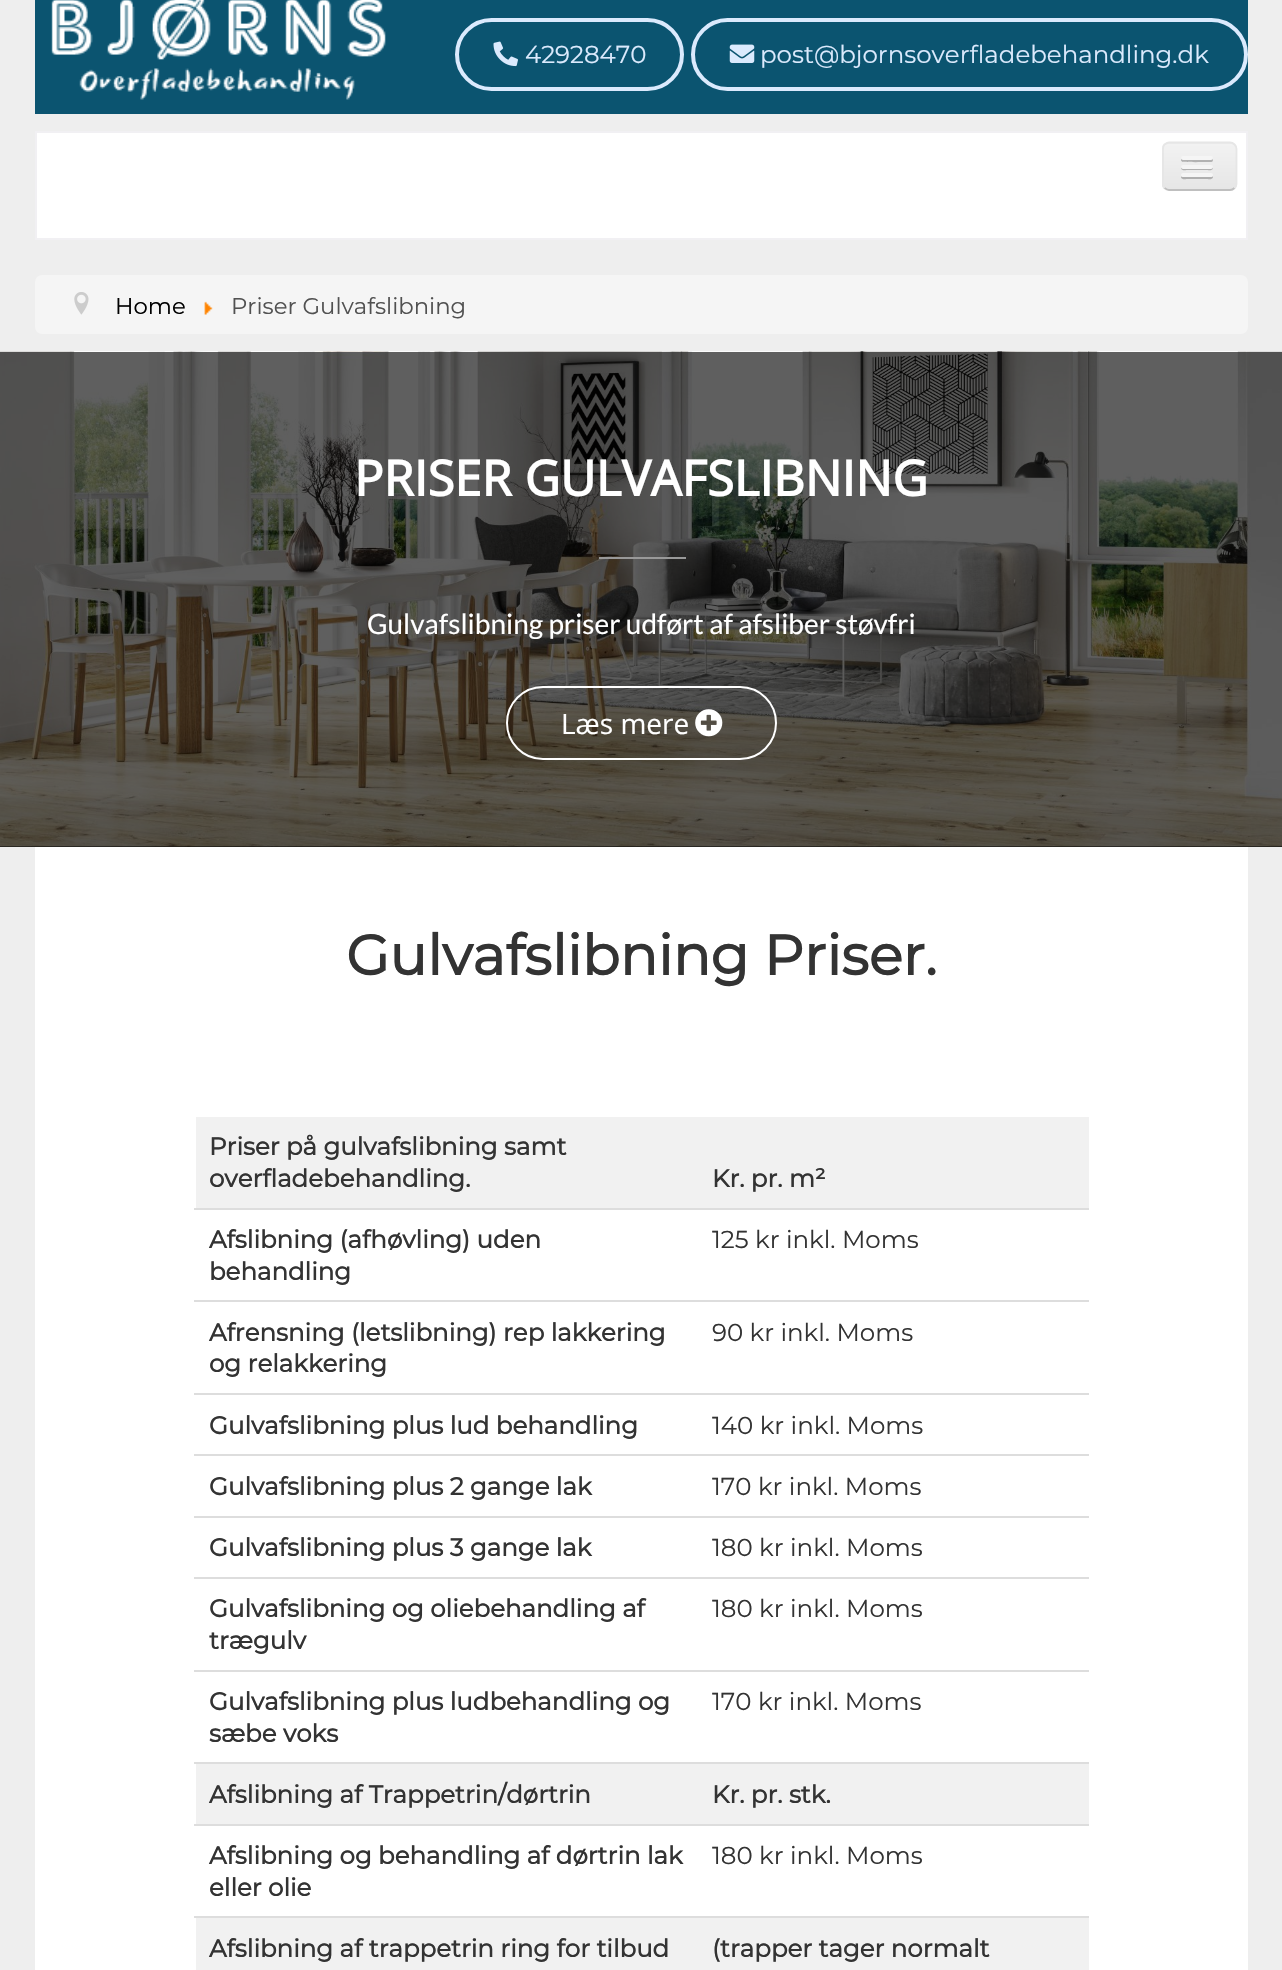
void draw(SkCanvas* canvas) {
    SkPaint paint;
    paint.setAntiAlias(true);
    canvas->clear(0xFFEEEEEE);
    paint.setColor(0xFF0B5470);
    canvas->drawRect(SkRect::MakeXYWH(35, 0, 1213, 114), paint);
    canvas->drawImageRect(SkImages::DeferredFromEncodedData(SkData::MakeFromFileName("img1.png")), SkRect::MakeXYWH(51, 0, 335, 100), SkSamplingOptions());
    paint.setStyle(SkPaint::kStroke_Style);
    paint.setStrokeWidth(4);
    paint.setColor(0xFFDBEAFD);
    canvas->drawRoundRect(SkRect::MakeXYWH(457, 20, 225, 69), 34.5f, 34.5f, paint);
    canvas->drawImageRect(SkImages::DeferredFromEncodedData(SkData::MakeFromFileName("img2.png")), SkRect::MakeXYWH(493, 41, 25, 26), SkSamplingOptions());
    SkFont font1(fontMgr->matchFamilyStyle("Montserrat", SkFontStyle(100, SkFontStyle::kNormal_Width, SkFontStyle::kUpright_Slant)), 24.5f);
    font1.setSubpixel(true);
    paint.setStyle(SkPaint::kFill_Style);
    canvas->drawString("42928470", 525, 63, font1, paint);
    paint.setStyle(SkPaint::kStroke_Style);
    canvas->drawRoundRect(SkRect::MakeXYWH(693, 20, 553, 69), 34.5f, 34.5f, paint);
    canvas->drawImageRect(SkImages::DeferredFromEncodedData(SkData::MakeFromFileName("img3.png")), SkRect::MakeXYWH(729, 44, 26, 19), SkSamplingOptions());
    paint.setStyle(SkPaint::kFill_Style);
    canvas->drawString("post@bjornsoverfladebehandling.dk", 760, 63, font1, paint);
    paint.setColor(0xFFFFFFFF);
    canvas->drawRect(SkRect::MakeXYWH(36, 132, 1211, 107), paint);
    paint.setStyle(SkPaint::kStroke_Style);
    paint.setStrokeWidth(2);
    paint.setColor(0xFFF1F0F3);
    canvas->drawRect(SkRect::MakeXYWH(36, 132, 1211, 107), paint);
    paint.setStyle(SkPaint::kFill_Style);
    paint.setColor(0xFFEDEDED);
    canvas->drawRoundRect(SkRect::MakeXYWH(1162, 142, 75, 49), 7, 7, paint);
    canvas->save();
    canvas->clipPath(SkPathBuilder().moveTo(1169, 142).lineTo(1230, 142).cubicTo(1234, 142, 1237, 145, 1237, 149).lineTo(1237, 184).cubicTo(1237, 188, 1234, 191, 1230, 191).lineTo(1169, 191).cubicTo(1165, 191, 1162, 188, 1162, 184).lineTo(1162, 149).cubicTo(1162, 145, 1165, 142, 1169, 142).close().detach(), true);
    {
        const SkColor colors[] = {0xFFF2F2F2, 0xFFE6E6E6};
        const float stops[] = {0, 1};
        const SkPoint ends[] = {{1200, 144}, {1200, 189}};
        paint.setShader(SkGradientShader::MakeLinear(ends, colors, stops, 2, SkTileMode::kClamp));
        paint.setAlpha(255);
    }
    canvas->drawRect(SkRect::MakeXYWH(1162, 144, 75, 45), paint);
    canvas->restore();
    paint.setStyle(SkPaint::kStroke_Style);
    paint.setStrokeWidth(1.8f);
    paint.setShader(nullptr);
    paint.setColor(0xFFBFBFBF);
    canvas->drawPath(SkPathBuilder().moveTo(1234.5f, 188).cubicTo(1233.5f, 189, 1232, 190, 1230, 190).lineTo(1169, 190).cubicTo(1167.5f, 190, 1166, 189, 1164.5f, 188).detach(), paint);
    paint.setColor(0xFFE6E6E6);
    canvas->drawPath(SkPathBuilder().moveTo(1164.5f, 188).cubicTo(1163.5f, 187, 1163, 185.5f, 1163, 184).lineTo(1163, 149).cubicTo(1163, 147, 1163.5f, 145.5f, 1164.5f, 144.5f).cubicTo(1166, 143.5f, 1167.5f, 142.5f, 1169, 142.5f).lineTo(1230, 142.5f).cubicTo(1232, 142.5f, 1233.5f, 143.5f, 1234.5f, 144.5f).cubicTo(1235.5f, 145.5f, 1236.5f, 147, 1236.5f, 149).lineTo(1236.5f, 184).cubicTo(1236.5f, 185.5f, 1235.5f, 187, 1234.5f, 188).detach(), paint);
    paint.setStyle(SkPaint::kFill_Style);
    paint.setColor(0xFFB2B2B2);
    canvas->drawPath(SkPathBuilder().moveTo(1181.5f, 158.5f).cubicTo(1180.5f, 159.5f, 1181, 161, 1182, 161.5f).cubicTo(1183, 162.5f, 1207.5f, 162, 1211, 162).cubicTo(1213, 162, 1213.5f, 160, 1212.5f, 158.5f).lineTo(1211, 159).lineTo(1183, 159).close().detach(), paint);
    paint.setColor(0xFFF5F5F5);
    canvas->drawRoundRect(SkRect::MakeXYWH(1181, 156, 32, 4), 2, 2, paint);
    paint.setColor(0xFFB0B0B0);
    canvas->drawPath(SkPathBuilder().moveTo(1181.5f, 167).lineTo(1181, 168.5f).cubicTo(1181.5f, 171, 1186.5f, 170, 1187.5f, 170).lineTo(1206.5f, 170).cubicTo(1207.5f, 170, 1212.5f, 171, 1213, 168.5f).lineTo(1212.5f, 167).cubicTo(1212.5f, 167.5f, 1212, 168, 1211, 168).lineTo(1183, 168).cubicTo(1182, 168, 1181.5f, 167.5f, 1181.5f, 167).close().detach(), paint);
    paint.setColor(0xFFF5F5F5);
    canvas->drawRoundRect(SkRect::MakeXYWH(1181, 165, 32, 4), 2, 2, paint);
    paint.setColor(0xFFAFAFAF);
    canvas->drawPath(SkPathBuilder().moveTo(1181.5f, 176).lineTo(1181, 177.5f).cubicTo(1181.5f, 180, 1186.5f, 179, 1187.5f, 179).lineTo(1206.5f, 179).cubicTo(1207.5f, 179, 1212.5f, 180, 1213, 177.5f).lineTo(1212.5f, 176).cubicTo(1212.5f, 176.5f, 1211.5f, 177, 1211, 177).lineTo(1183, 177).cubicTo(1182.5f, 177, 1181.5f, 176.5f, 1181.5f, 176).close().detach(), paint);
    paint.setColor(0xFFF5F5F5);
    canvas->drawRoundRect(SkRect::MakeXYWH(1181, 173, 32, 4), 2, 2, paint);
    canvas->drawRoundRect(SkRect::MakeXYWH(35, 275, 1213, 59), 7, 7, paint);
    canvas->drawImageRect(SkImages::DeferredFromEncodedData(SkData::MakeFromFileName("img4.png")), SkRect::MakeXYWH(74, 292, 15, 23), SkSamplingOptions());
    SkFont font2(fontMgr->matchFamilyStyle("Montserrat", SkFontStyle(100, SkFontStyle::kNormal_Width, SkFontStyle::kUpright_Slant)), 22.75f);
    font2.setSubpixel(true);
    paint.setColor(0xFF000000);
    canvas->drawString("Home", 115, 314, font2, paint);
    canvas->drawImageRect(SkImages::DeferredFromEncodedData(SkData::MakeFromFileName("img5.png")), SkRect::MakeXYWH(204, 301, 9, 14), SkSamplingOptions());
    paint.setColor(0xFF515151);
    canvas->drawString("Priser Gulvafslibning", 231, 314, font2, paint);
    paint.setColor(0xFF010101);
    canvas->drawRect(SkRect::MakeXYWH(0, 846, 1282, 1), paint);
    canvas->drawImageRect(SkImages::DeferredFromEncodedData(SkData::MakeFromFileName("img6.png")), SkRect::MakeXYWH(0, 351, 1282, 496), SkSamplingOptions());
    SkFont font3(fontMgr->matchFamilyStyle("Open Sans", SkFontStyle::Bold()), 49);
    font3.setSubpixel(true);
    paint.setColor(0xFFFFFFFF);
    canvas->drawString("PRISER GULVAFSLIBNING", 354, 496, font3, paint);
    paint.setColor(0xFF999999);
    canvas->drawRect(SkRect::MakeXYWH(599, 557, 87, 2), paint);
    SkFont font4(fontMgr->matchFamilyStyle("Lato", SkFontStyle::Normal()), 28);
    font4.setSubpixel(true);
    paint.setColor(0xFFFFFFFF);
    canvas->drawString("Gulvafslibning priser udført af afsliber støvfri", 367, 634, font4, paint);
    paint.setStyle(SkPaint::kStroke_Style);
    paint.setStrokeWidth(2);
    canvas->drawRoundRect(SkRect::MakeXYWH(507, 687, 269, 72), 36, 36, paint);
    SkFont font5(fontMgr->matchFamilyStyle("Open Sans", SkFontStyle::Normal()), 28);
    font5.setSubpixel(true);
    paint.setStyle(SkPaint::kFill_Style);
    canvas->drawString("Læs mere", 561, 734, font5, paint);
    canvas->drawImageRect(SkImages::DeferredFromEncodedData(SkData::MakeFromFileName("img7.png")), SkRect::MakeXYWH(695, 709, 28, 28), SkSamplingOptions());
    canvas->drawRect(SkRect::MakeXYWH(35, 847, 1213, 1123), paint);
    SkFont font6(fontMgr->matchFamilyStyle("Montserrat", SkFontStyle::Bold()), 56);
    font6.setSubpixel(true);
    paint.setColor(0xFF333333);
    canvas->drawString("Gulvafslibning Priser.", 346, 975, font6, paint);
    paint.setColor(0xFFF1F1F1);
    canvas->drawRect(SkRect::MakeXYWH(196, 1117, 893, 91), paint);
    SkFont font7(fontMgr->matchFamilyStyle("Montserrat", SkFontStyle::Bold()), 24.5f);
    font7.setSubpixel(true);
    paint.setColor(0xFF333333);
    canvas->drawString("Priser på gulvafslibning samt", 209, 1155, font7, paint);
    canvas->drawString("overfladebehandling.", 209, 1187, font7, paint);
    canvas->drawString("Kr. pr. m²", 712, 1187, font7, paint);
    canvas->drawString("Afslibning (afhøvling) uden", 209, 1248, font7, paint);
    canvas->drawString("behandling", 209, 1280, font7, paint);
    paint.setColor(0xFFDDDDDD);
    canvas->drawRect(SkRect::MakeXYWH(194, 1208, 895, 2), paint);
    paint.setColor(0xFF333333);
    canvas->drawString("125 kr inkl. Moms", 712, 1248, font1, paint);
    canvas->drawString("Afrensning (letslibning) rep lakkering", 209, 1341, font7, paint);
    canvas->drawString("og relakkering", 209, 1372, font7, paint);
    paint.setColor(0xFFDDDDDD);
    canvas->drawRect(SkRect::MakeXYWH(194, 1300, 895, 2), paint);
    paint.setColor(0xFF333333);
    canvas->drawString("90 kr inkl. Moms", 712, 1341, font1, paint);
    canvas->drawString("Gulvafslibning plus lud behandling", 209, 1434, font7, paint);
    paint.setColor(0xFFDDDDDD);
    canvas->drawRect(SkRect::MakeXYWH(194, 1393, 895, 2), paint);
    paint.setColor(0xFF333333);
    canvas->drawString("140 kr inkl. Moms", 712, 1434, font1, paint);
    canvas->drawString("Gulvafslibning plus 2 gange lak", 209, 1495, font7, paint);
    paint.setColor(0xFFDDDDDD);
    canvas->drawRect(SkRect::MakeXYWH(194, 1454, 895, 2), paint);
    paint.setColor(0xFF333333);
    canvas->drawString("170 kr inkl. Moms", 712, 1495, font1, paint);
    canvas->drawString("Gulvafslibning plus 3 gange lak", 209, 1556, font7, paint);
    paint.setColor(0xFFDDDDDD);
    canvas->drawRect(SkRect::MakeXYWH(194, 1516, 895, 2), paint);
    paint.setColor(0xFF333333);
    canvas->drawString("180 kr inkl. Moms", 712, 1556, font1, paint);
    canvas->drawString("Gulvafslibning og oliebehandling af", 209, 1617, font7, paint);
    canvas->drawString("trægulv", 209, 1649, font7, paint);
    paint.setColor(0xFFDDDDDD);
    canvas->drawRect(SkRect::MakeXYWH(194, 1577, 895, 2), paint);
    paint.setColor(0xFF333333);
    canvas->drawString("180 kr inkl. Moms", 712, 1617, font1, paint);
    canvas->drawString("Gulvafslibning plus ludbehandling og", 209, 1710, font7, paint);
    canvas->drawString("sæbe voks", 209, 1742, font7, paint);
    paint.setColor(0xFFDDDDDD);
    canvas->drawRect(SkRect::MakeXYWH(194, 1670, 895, 2), paint);
    paint.setColor(0xFF333333);
    canvas->drawString("170 kr inkl. Moms", 712, 1710, font1, paint);
    paint.setColor(0xFFF1F1F1);
    canvas->drawRect(SkRect::MakeXYWH(196, 1764, 893, 60), paint);
    paint.setColor(0xFF333333);
    canvas->drawString("Afslibning af Trappetrin/dørtrin", 209, 1803, font7, paint);
    paint.setColor(0xFFDDDDDD);
    canvas->drawRect(SkRect::MakeXYWH(194, 1762, 895, 2), paint);
    paint.setColor(0xFF333333);
    canvas->drawString("Kr. pr. stk.", 712, 1803, font7, paint);
    canvas->drawString("Afslibning og behandling af dørtrin lak", 209, 1864, font7, paint);
    canvas->drawString("eller olie", 209, 1896, font7, paint);
    paint.setColor(0xFFDDDDDD);
    canvas->drawRect(SkRect::MakeXYWH(194, 1824, 895, 2), paint);
    paint.setColor(0xFF333333);
    canvas->drawString("180 kr inkl. Moms", 712, 1864, font1, paint);
    paint.setColor(0xFFF1F1F1);
    canvas->drawRect(SkRect::MakeXYWH(196, 1918, 893, 52), paint);
    paint.setColor(0xFF333333);
    canvas->drawString("Afslibning af trappetrin ring for tilbud", 209, 1957, font7, paint);
    paint.setColor(0xFFDDDDDD);
    canvas->drawRect(SkRect::MakeXYWH(194, 1916, 895, 2), paint);
    paint.setColor(0xFF333333);
    canvas->drawString("(trapper tager normalt", 712, 1957, font7, paint);
}
